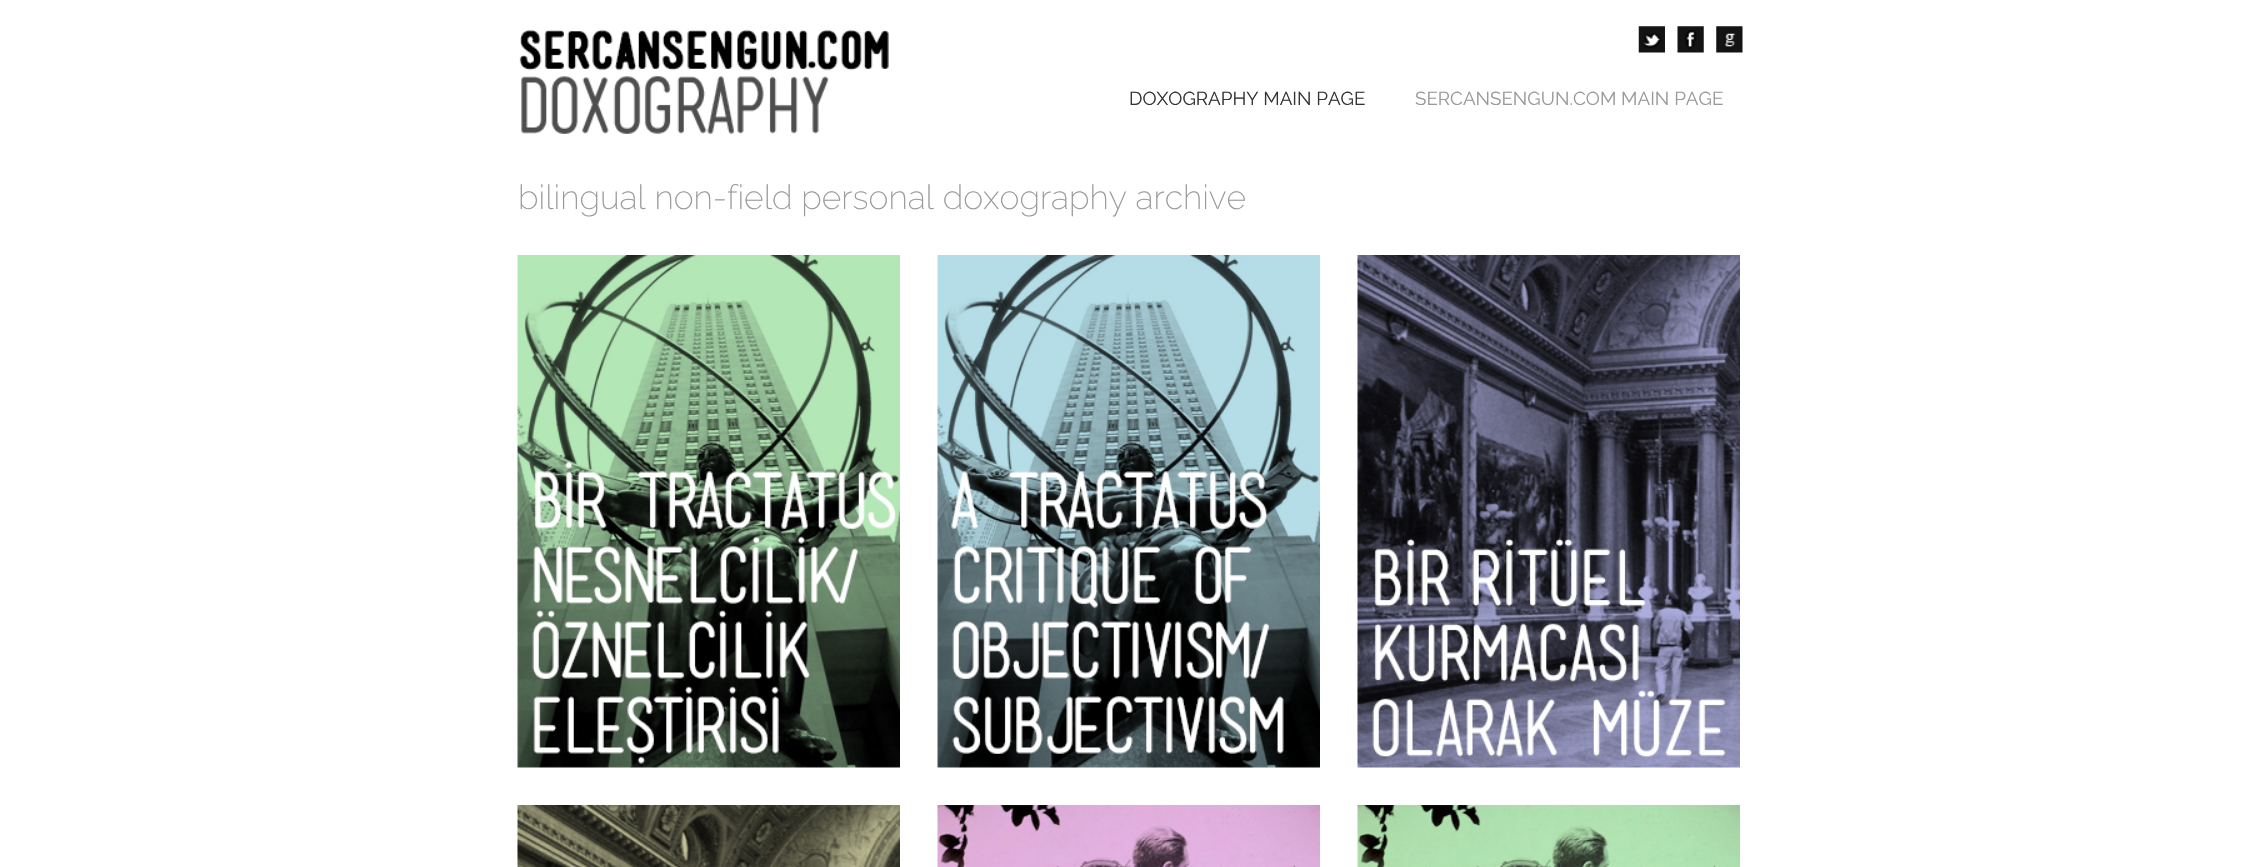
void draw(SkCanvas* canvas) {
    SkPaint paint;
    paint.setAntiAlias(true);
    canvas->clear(0xFFFFFFFF);
    canvas->drawImageRect(SkImages::DeferredFromEncodedData(SkData::MakeFromFileName("img1.png")), SkRect::MakeXYWH(519, 29, 370, 105), SkSamplingOptions());
    canvas->drawImageRect(SkImages::DeferredFromEncodedData(SkData::MakeFromFileName("img2.png")), SkRect::MakeXYWH(1638, 26, 27, 27), SkSamplingOptions());
    canvas->drawImageRect(SkImages::DeferredFromEncodedData(SkData::MakeFromFileName("img3.png")), SkRect::MakeXYWH(1677, 26, 27, 27), SkSamplingOptions());
    canvas->drawImageRect(SkImages::DeferredFromEncodedData(SkData::MakeFromFileName("img4.png")), SkRect::MakeXYWH(1716, 26, 27, 27), SkSamplingOptions());
    SkFont font1(fontMgr->matchFamilyStyle("Raleway", SkFontStyle::Normal()), 18.75f);
    font1.setSubpixel(true);
    paint.setColor(0xFF333333);
    canvas->drawString("DOXOGRAPHY MAIN PAGE", 1129, 105, font1, paint);
    paint.setColor(0xFF999999);
    canvas->drawString("SERCANSENGUN.COM MAIN PAGE", 1415, 105, font1, paint);
    SkFont font2(fontMgr->matchFamilyStyle("Raleway", SkFontStyle(200, SkFontStyle::kNormal_Width, SkFontStyle::kUpright_Slant)), 33.75f);
    font2.setSubpixel(true);
    canvas->drawString("bilingual non-field personal doxography archive", 518, 209, font2, paint);
    canvas->drawImageRect(SkImages::DeferredFromEncodedData(SkData::MakeFromFileName("img5.png")), SkRect::MakeXYWH(517, 255, 383, 513), SkSamplingOptions());
    canvas->drawImageRect(SkImages::DeferredFromEncodedData(SkData::MakeFromFileName("img6.png")), SkRect::MakeXYWH(937, 255, 383, 513), SkSamplingOptions());
    canvas->drawImageRect(SkImages::DeferredFromEncodedData(SkData::MakeFromFileName("img7.png")), SkRect::MakeXYWH(1357, 255, 383, 513), SkSamplingOptions());
    canvas->drawImageRect(SkImages::DeferredFromEncodedData(SkData::MakeFromFileName("img8.png")), SkRect::MakeXYWH(517, 805, 383, 62), SkSamplingOptions());
    canvas->drawImageRect(SkImages::DeferredFromEncodedData(SkData::MakeFromFileName("img9.png")), SkRect::MakeXYWH(937, 805, 383, 62), SkSamplingOptions());
    canvas->drawImageRect(SkImages::DeferredFromEncodedData(SkData::MakeFromFileName("img10.png")), SkRect::MakeXYWH(1357, 805, 383, 62), SkSamplingOptions());
}
